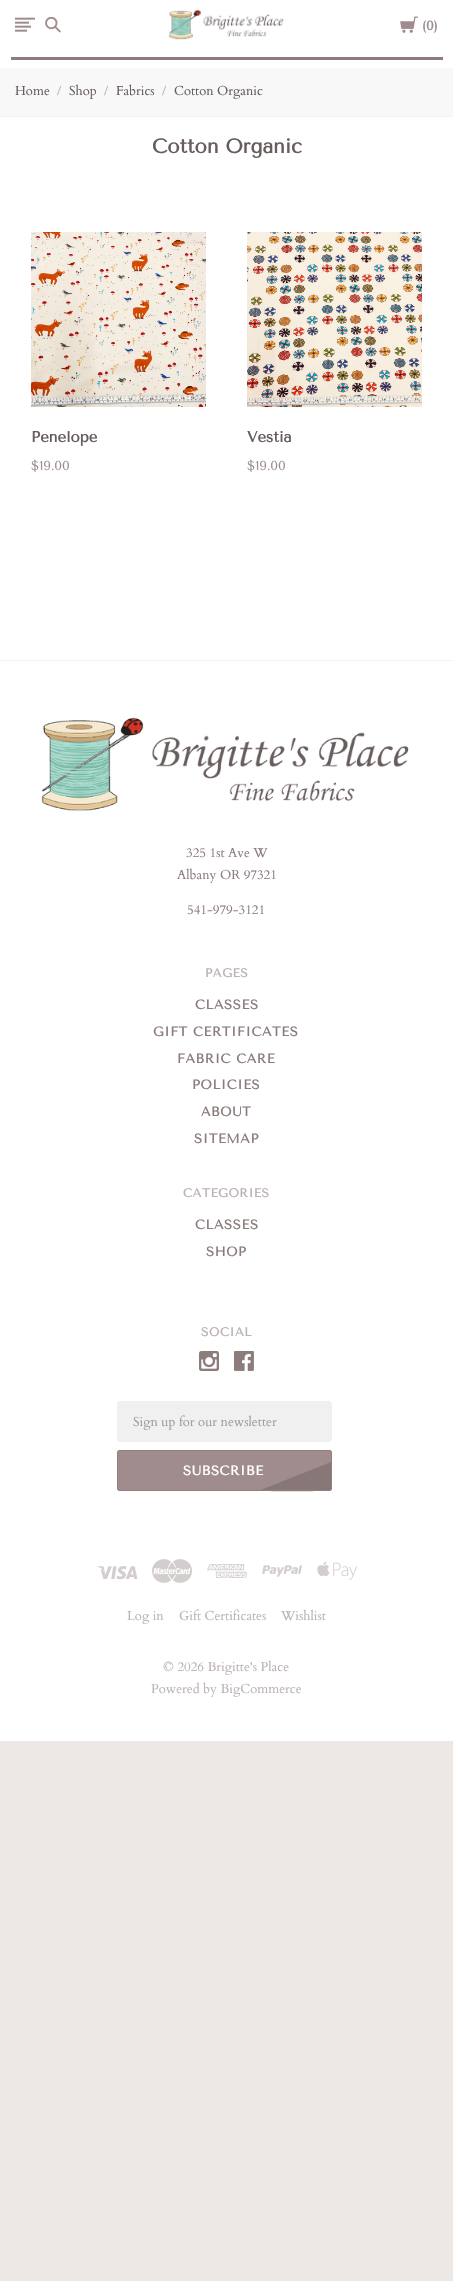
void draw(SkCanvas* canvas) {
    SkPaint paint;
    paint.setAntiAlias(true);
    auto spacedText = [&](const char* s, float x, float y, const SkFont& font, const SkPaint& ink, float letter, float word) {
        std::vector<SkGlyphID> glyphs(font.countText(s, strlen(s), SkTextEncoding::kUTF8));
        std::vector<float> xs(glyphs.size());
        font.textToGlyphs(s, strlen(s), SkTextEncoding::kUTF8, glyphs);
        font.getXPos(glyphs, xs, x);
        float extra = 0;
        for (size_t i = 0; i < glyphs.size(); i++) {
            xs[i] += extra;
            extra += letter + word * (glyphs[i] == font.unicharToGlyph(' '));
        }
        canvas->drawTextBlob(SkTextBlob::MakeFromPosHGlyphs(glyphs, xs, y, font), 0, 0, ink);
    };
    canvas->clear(0xFFEDE7E5);
    paint.setColor(0xFFFFFFFF);
    canvas->drawRect(SkRect::MakeXYWH(0, 0, 453, 1741), paint);
    canvas->drawImageRect(SkImages::DeferredFromEncodedData(SkData::MakeFromFileName("img1.png")), SkRect::MakeXYWH(168, 9, 116, 31), SkSamplingOptions());
    canvas->drawImageRect(SkImages::DeferredFromEncodedData(SkData::MakeFromFileName("img2.png")), SkRect::MakeXYWH(15, 17, 20, 15), SkSamplingOptions());
    canvas->drawImageRect(SkImages::DeferredFromEncodedData(SkData::MakeFromFileName("img3.png")), SkRect::MakeXYWH(45, 17, 16, 16), SkSamplingOptions());
    canvas->drawImageRect(SkImages::DeferredFromEncodedData(SkData::MakeFromFileName("img4.png")), SkRect::MakeXYWH(400, 16, 18, 17), SkSamplingOptions());
    SkFont font1(fontMgr->matchFamilyStyle("Tenor Sans", SkFontStyle::Bold()), 13);
    font1.setSubpixel(true);
    paint.setColor(0xFF9B8E8E);
    canvas->drawString("(0)", 422, 30, font1, paint);
    paint.setColor(0xFF8C7C7C);
    canvas->drawRect(SkRect::MakeXYWH(11, 57, 432, 3), paint);
    paint.setColor(0xFFF8F8F8);
    canvas->drawRect(SkRect::MakeXYWH(0, 68, 453, 48), paint);
    paint.setColor(0xFFF2F2F2);
    canvas->drawRect(SkRect::MakeXYWH(0, 116, 453, 1), paint);
    SkFont font2(fontMgr->matchFamilyStyle("Cardo", SkFontStyle::Normal()), 13);
    font2.setSubpixel(true);
    paint.setColor(0xFF675D5D);
    canvas->drawString("Home", 15, 95, font2, paint);
    paint.setColor(0xFFBCB2B2);
    canvas->drawString("/", 57, 95, font2, paint);
    paint.setColor(0xFF675D5D);
    canvas->drawString("Shop", 69, 95, font2, paint);
    paint.setColor(0xFFBCB2B2);
    canvas->drawString("/", 104, 95, font2, paint);
    paint.setColor(0xFF675D5D);
    canvas->drawString("Fabrics", 116, 95, font2, paint);
    paint.setColor(0xFFBCB2B2);
    canvas->drawString("/", 162, 95, font2, paint);
    paint.setColor(0xFF675D5D);
    canvas->drawString("Cotton Organic", 174, 95, font2, paint);
    SkFont font3(fontMgr->matchFamilyStyle("Tenor Sans", SkFontStyle::Bold()), 20);
    font3.setSubpixel(true);
    canvas->drawString("Cotton Organic", 152, 153, font3, paint);
    canvas->drawImageRect(SkImages::DeferredFromEncodedData(SkData::MakeFromFileName("img5.png")), SkRect::MakeXYWH(31, 232, 175, 175), SkSamplingOptions());
    SkFont font4(fontMgr->matchFamilyStyle("Tenor Sans", SkFontStyle::Bold()), 15);
    font4.setSubpixel(true);
    canvas->drawString("Penelope", 31, 442, font4, paint);
    SkFont font5(fontMgr->matchFamilyStyle("Tenor Sans", SkFontStyle::Normal()), 13);
    font5.setSubpixel(true);
    paint.setColor(0xFF9B8E8E);
    canvas->drawString("$19.00", 31, 470, font5, paint);
    canvas->drawImageRect(SkImages::DeferredFromEncodedData(SkData::MakeFromFileName("img6.png")), SkRect::MakeXYWH(247, 232, 175, 175), SkSamplingOptions());
    paint.setColor(0xFF675D5D);
    canvas->drawString("Vestia", 247, 442, font4, paint);
    paint.setColor(0xFF9B8E8E);
    canvas->drawString("$19.00", 247, 470, font5, paint);
    paint.setColor(0xFFF2F2F2);
    canvas->drawRect(SkRect::MakeXYWH(0, 660, 453, 1), paint);
    canvas->drawImageRect(SkImages::DeferredFromEncodedData(SkData::MakeFromFileName("img7.png")), SkRect::MakeXYWH(41, 717, 368, 94), SkSamplingOptions());
    paint.setColor(0xFF8C7C7C);
    canvas->drawString("325 1st Ave W", 186, 857, font2, paint);
    canvas->drawString("Albany OR 97321", 177, 879, font2, paint);
    canvas->drawString("541-979-3121", 187, 914, font2, paint);
    SkFont font6(fontMgr->matchFamilyStyle("Tenor Sans", SkFontStyle::Bold()), 12);
    font6.setSubpixel(true);
    paint.setColor(0xFFBCB2B2);
    spacedText("PAGES", 205, 977, font6, paint, 0.5f, 0);
    paint.setColor(0xFF8C7C7C);
    spacedText("CLASSES", 195, 1009, font1, paint, 0.6f, 0);
    spacedText("GIFT CERTIFICATES", 153, 1036, font1, paint, 0.6f, 0);
    spacedText("FABRIC CARE", 177, 1063, font1, paint, 0.6f, 0);
    spacedText("POLICIES", 192, 1089, font1, paint, 0.6f, 0);
    spacedText("ABOUT", 201, 1116, font1, paint, 0.6f, 0);
    spacedText("SITEMAP", 194, 1143, font1, paint, 0.6f, 0);
    paint.setColor(0xFFBCB2B2);
    spacedText("CATEGORIES", 183, 1197, font6, paint, 0.5f, 0);
    paint.setColor(0xFF8C7C7C);
    spacedText("CLASSES", 195, 1229, font1, paint, 0.6f, 0);
    spacedText("SHOP", 206, 1256, font1, paint, 0.6f, 0);
    paint.setColor(0xFFBCB2B2);
    spacedText("SOCIAL", 201, 1336, font6, paint, 0.5f, 0);
    canvas->drawImageRect(SkImages::DeferredFromEncodedData(SkData::MakeFromFileName("img8.png")), SkRect::MakeXYWH(199, 1351, 20, 20), SkSamplingOptions());
    canvas->drawImageRect(SkImages::DeferredFromEncodedData(SkData::MakeFromFileName("img9.png")), SkRect::MakeXYWH(234, 1351, 20, 20), SkSamplingOptions());
    paint.setColor(0xFFF0F0F0);
    canvas->drawRoundRect(SkRect::MakeXYWH(117.5f, 1401.5f, 214, 40), 2.5f, 2.5f, paint);
    paint.setStyle(SkPaint::kStroke_Style);
    paint.setStrokeWidth(1);
    canvas->drawRoundRect(SkRect::MakeXYWH(117.5f, 1401.5f, 214, 40), 2.5f, 2.5f, paint);
    paint.setStyle(SkPaint::kFill_Style);
    paint.setColor(0xFF9D9D9D);
    canvas->drawString("Sign up for our newsletter", 133, 1426, font2, paint);
    paint.setColor(0xFFA08C8C);
    canvas->drawRoundRect(SkRect::MakeXYWH(117, 1450, 215, 41), 3, 3, paint);
    paint.setColor(0xFF887777);
    canvas->drawPath(SkPathBuilder().moveTo(331, 1490).cubicTo(329, 1492, 266, 1491, 258, 1491).lineTo(331, 1462).close().detach(), paint);
    paint.setStyle(SkPaint::kStroke_Style);
    paint.setColor(0xFF947E7E);
    canvas->drawRoundRect(SkRect::MakeXYWH(117.5f, 1450.5f, 214, 40), 2.5f, 2.5f, paint);
    paint.setStyle(SkPaint::kFill_Style);
    paint.setColor(0xFFFFFFFF);
    spacedText("SUBSCRIBE", 183, 1475, font1, paint, 0.6f, 0);
    canvas->drawImageRect(SkImages::DeferredFromEncodedData(SkData::MakeFromFileName("img10.png")), SkRect::MakeXYWH(97, 1566, 40, 14), SkSamplingOptions());
    canvas->drawImageRect(SkImages::DeferredFromEncodedData(SkData::MakeFromFileName("img11.png")), SkRect::MakeXYWH(152, 1559, 40, 24), SkSamplingOptions());
    canvas->drawImageRect(SkImages::DeferredFromEncodedData(SkData::MakeFromFileName("img12.png")), SkRect::MakeXYWH(207, 1564, 40, 14), SkSamplingOptions());
    canvas->drawImageRect(SkImages::DeferredFromEncodedData(SkData::MakeFromFileName("img13.png")), SkRect::MakeXYWH(262, 1565, 40, 12), SkSamplingOptions());
    canvas->drawImageRect(SkImages::DeferredFromEncodedData(SkData::MakeFromFileName("img14.png")), SkRect::MakeXYWH(317, 1561, 40, 20), SkSamplingOptions());
    paint.setColor(0xFFBCB2B2);
    canvas->drawString("Log in", 127, 1620, font2, paint);
    canvas->drawString("Gift Certificates", 179, 1620, font2, paint);
    canvas->drawString("Wishlist", 281, 1620, font2, paint);
    canvas->drawString("© 2026 Brigitte's Place", 163, 1671, font2, paint);
    canvas->drawString("Powered by BigCommerce", 151, 1693, font2, paint);
}
